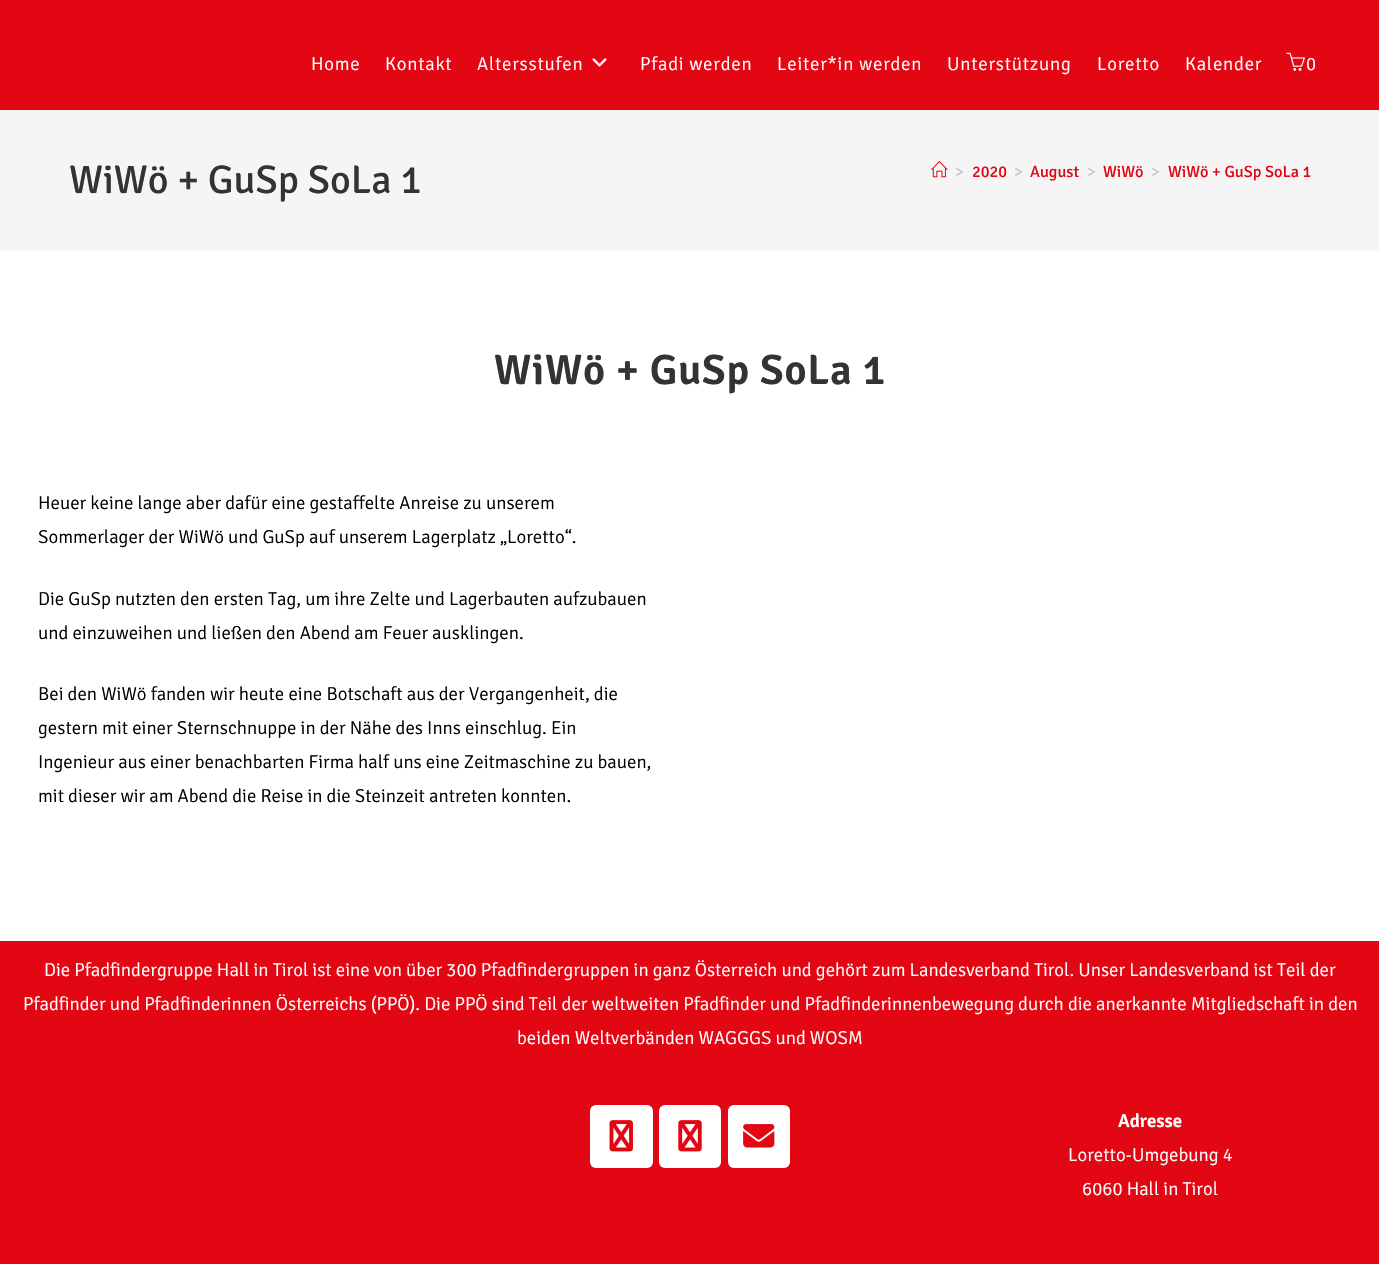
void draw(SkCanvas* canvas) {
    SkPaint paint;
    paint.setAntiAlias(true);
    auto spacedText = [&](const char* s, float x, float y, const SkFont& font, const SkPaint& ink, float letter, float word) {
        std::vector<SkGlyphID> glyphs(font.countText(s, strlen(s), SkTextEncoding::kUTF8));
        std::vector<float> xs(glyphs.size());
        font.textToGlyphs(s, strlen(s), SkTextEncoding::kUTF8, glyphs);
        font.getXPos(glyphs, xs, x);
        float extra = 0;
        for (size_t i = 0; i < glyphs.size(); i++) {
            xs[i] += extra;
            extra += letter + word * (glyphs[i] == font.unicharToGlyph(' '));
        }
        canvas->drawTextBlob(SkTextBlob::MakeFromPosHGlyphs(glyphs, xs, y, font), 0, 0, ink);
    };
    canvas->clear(0xFFFFFFFF);
    paint.setColor(0xFFE30613);
    canvas->drawRect(SkRect::MakeXYWH(0, 0, 1379, 110), paint);
    SkFont font1(fontMgr->matchFamilyStyle("Signika", SkFontStyle(300, SkFontStyle::kNormal_Width, SkFontStyle::kUpright_Slant)), 18.75f);
    font1.setSubpixel(true);
    paint.setColor(0xFFFFFFFF);
    spacedText("Home", 311, 70, font1, paint, 0.75f, 0);
    spacedText("Kontakt", 385, 70, font1, paint, 0.75f, 0);
    spacedText("Altersstufen", 477, 70, font1, paint, 0.75f, 0);
    canvas->drawImageRect(SkImages::DeferredFromEncodedData(SkData::MakeFromFileName("img1.png")), SkRect::MakeXYWH(592, 58, 15, 9), SkSamplingOptions());
    spacedText("Pfadi werden", 640, 70, font1, paint, 0.75f, 0);
    spacedText("Leiter*in werden", 777, 70, font1, paint, 0.75f, 0);
    spacedText("Unterstützung", 947, 70, font1, paint, 0.75f, 0);
    spacedText("Loretto", 1097, 70, font1, paint, 0.75f, 0);
    spacedText("Kalender", 1185, 70, font1, paint, 0.75f, 0);
    canvas->drawImageRect(SkImages::DeferredFromEncodedData(SkData::MakeFromFileName("img2.png")), SkRect::MakeXYWH(1286, 52, 19, 19), SkSamplingOptions());
    spacedText("0", 1306, 70, font1, paint, 0.75f, 0);
    paint.setColor(0xFFF5F5F5);
    canvas->drawRect(SkRect::MakeXYWH(0, 110, 1379, 141), paint);
    SkFont font2(fontMgr->matchFamilyStyle("Signika", SkFontStyle::Normal()), 40);
    font2.setSubpixel(true);
    paint.setColor(0xFF333333);
    canvas->drawString("WiWö + GuSp SoLa 1", 69, 193, font2, paint);
    canvas->drawImageRect(SkImages::DeferredFromEncodedData(SkData::MakeFromFileName("img3.png")), SkRect::MakeXYWH(931, 161, 17, 17), SkSamplingOptions());
    SkFont font3(fontMgr->matchFamilyStyle("Signika", SkFontStyle::Normal()), 16.25f);
    font3.setSubpixel(true);
    paint.setColor(0xFFC6C6C6);
    canvas->drawString(">", 955, 177, font3, paint);
    paint.setColor(0xFFE30613);
    canvas->drawString("2020", 972, 177, font3, paint);
    paint.setColor(0xFFC6C6C6);
    canvas->drawString(">", 1014, 177, font3, paint);
    paint.setColor(0xFFE30613);
    canvas->drawString("August", 1030, 177, font3, paint);
    paint.setColor(0xFFC6C6C6);
    canvas->drawString(">", 1087, 177, font3, paint);
    paint.setColor(0xFFE30613);
    canvas->drawString("WiWö", 1103, 177, font3, paint);
    paint.setColor(0xFFC6C6C6);
    canvas->drawString(">", 1151, 177, font3, paint);
    paint.setColor(0xFFE30613);
    canvas->drawString("WiWö + GuSp SoLa 1", 1168, 177, font3, paint);
    SkFont font4(fontMgr->matchFamilyStyle("Signika", SkFontStyle(600, SkFontStyle::kNormal_Width, SkFontStyle::kUpright_Slant)), 42.5f);
    font4.setSubpixel(true);
    paint.setColor(0xFF333333);
    spacedText("WiWö + GuSp SoLa 1", 494, 384, font4, paint, 0.75f, 0);
    paint.setColor(0xFF000000);
    canvas->drawString("Heuer keine lange aber dafür eine gestaffelte Anreise zu unserem", 38, 509, font1, paint);
    canvas->drawString("Sommerlager der WiWö und GuSp auf unserem Lagerplatz „Loretto“.", 38, 543, font1, paint);
    canvas->drawString("Die GuSp nutzten den ersten Tag, um ihre Zelte und Lagerbauten aufzubauen", 38, 605, font1, paint);
    canvas->drawString("und einzuweihen und ließen den Abend am Feuer ausklingen.", 38, 639, font1, paint);
    canvas->drawString("Bei den WiWö fanden wir heute eine Botschaft aus der Vergangenheit, die", 38, 700, font1, paint);
    canvas->drawString("gestern mit einer Sternschnuppe in der Nähe des Inns einschlug. Ein", 38, 734, font1, paint);
    canvas->drawString("Ingenieur aus einer benachbarten Firma half uns eine Zeitmaschine zu bauen,", 38, 768, font1, paint);
    canvas->drawString("mit dieser wir am Abend die Reise in die Steinzeit antreten konnten.", 38, 802, font1, paint);
    paint.setColor(0xFFE30613);
    canvas->drawRect(SkRect::MakeXYWH(0, 941, 1379, 323), paint);
    paint.setColor(0xFFFFFFFF);
    canvas->drawString("Die Pfadfindergruppe Hall in Tirol ist eine von über 300 Pfadfindergruppen in ganz Österreich und gehört zum Landesverband Tirol. Unser Landesverband ist Teil der", 44, 976, font1, paint);
    canvas->drawString("Pfadfinder und Pfadfinderinnen Österreichs (PPÖ). Die PPÖ sind Teil der weltweiten Pfadfinder und Pfadfinderinnenbewegung durch die anerkannte Mitgliedschaft in den", 23, 1010, font1, paint);
    canvas->drawString("beiden Weltverbänden WAGGGS und WOSM", 517, 1044, font1, paint);
    canvas->drawRoundRect(SkRect::MakeXYWH(590, 1105, 63, 63), 6, 6, paint);
    canvas->drawImageRect(SkImages::DeferredFromEncodedData(SkData::MakeFromFileName("img4.png")), SkRect::MakeXYWH(609, 1120, 24, 32), SkSamplingOptions());
    canvas->drawRoundRect(SkRect::MakeXYWH(659, 1105, 62, 63), 6, 6, paint);
    canvas->drawImageRect(SkImages::DeferredFromEncodedData(SkData::MakeFromFileName("img5.png")), SkRect::MakeXYWH(678, 1120, 24, 32), SkSamplingOptions());
    canvas->drawRoundRect(SkRect::MakeXYWH(728, 1105, 62, 63), 6, 6, paint);
    canvas->drawImageRect(SkImages::DeferredFromEncodedData(SkData::MakeFromFileName("img6.png")), SkRect::MakeXYWH(743, 1124, 32, 24), SkSamplingOptions());
    SkFont font5(fontMgr->matchFamilyStyle("Signika", SkFontStyle(600, SkFontStyle::kNormal_Width, SkFontStyle::kUpright_Slant)), 18.75f);
    font5.setSubpixel(true);
    canvas->drawString("Adresse", 1118, 1127, font5, paint);
    canvas->drawString("Loretto-Umgebung 4", 1068, 1161, font1, paint);
    canvas->drawString("6060 Hall in Tirol", 1082, 1195, font1, paint);
}
